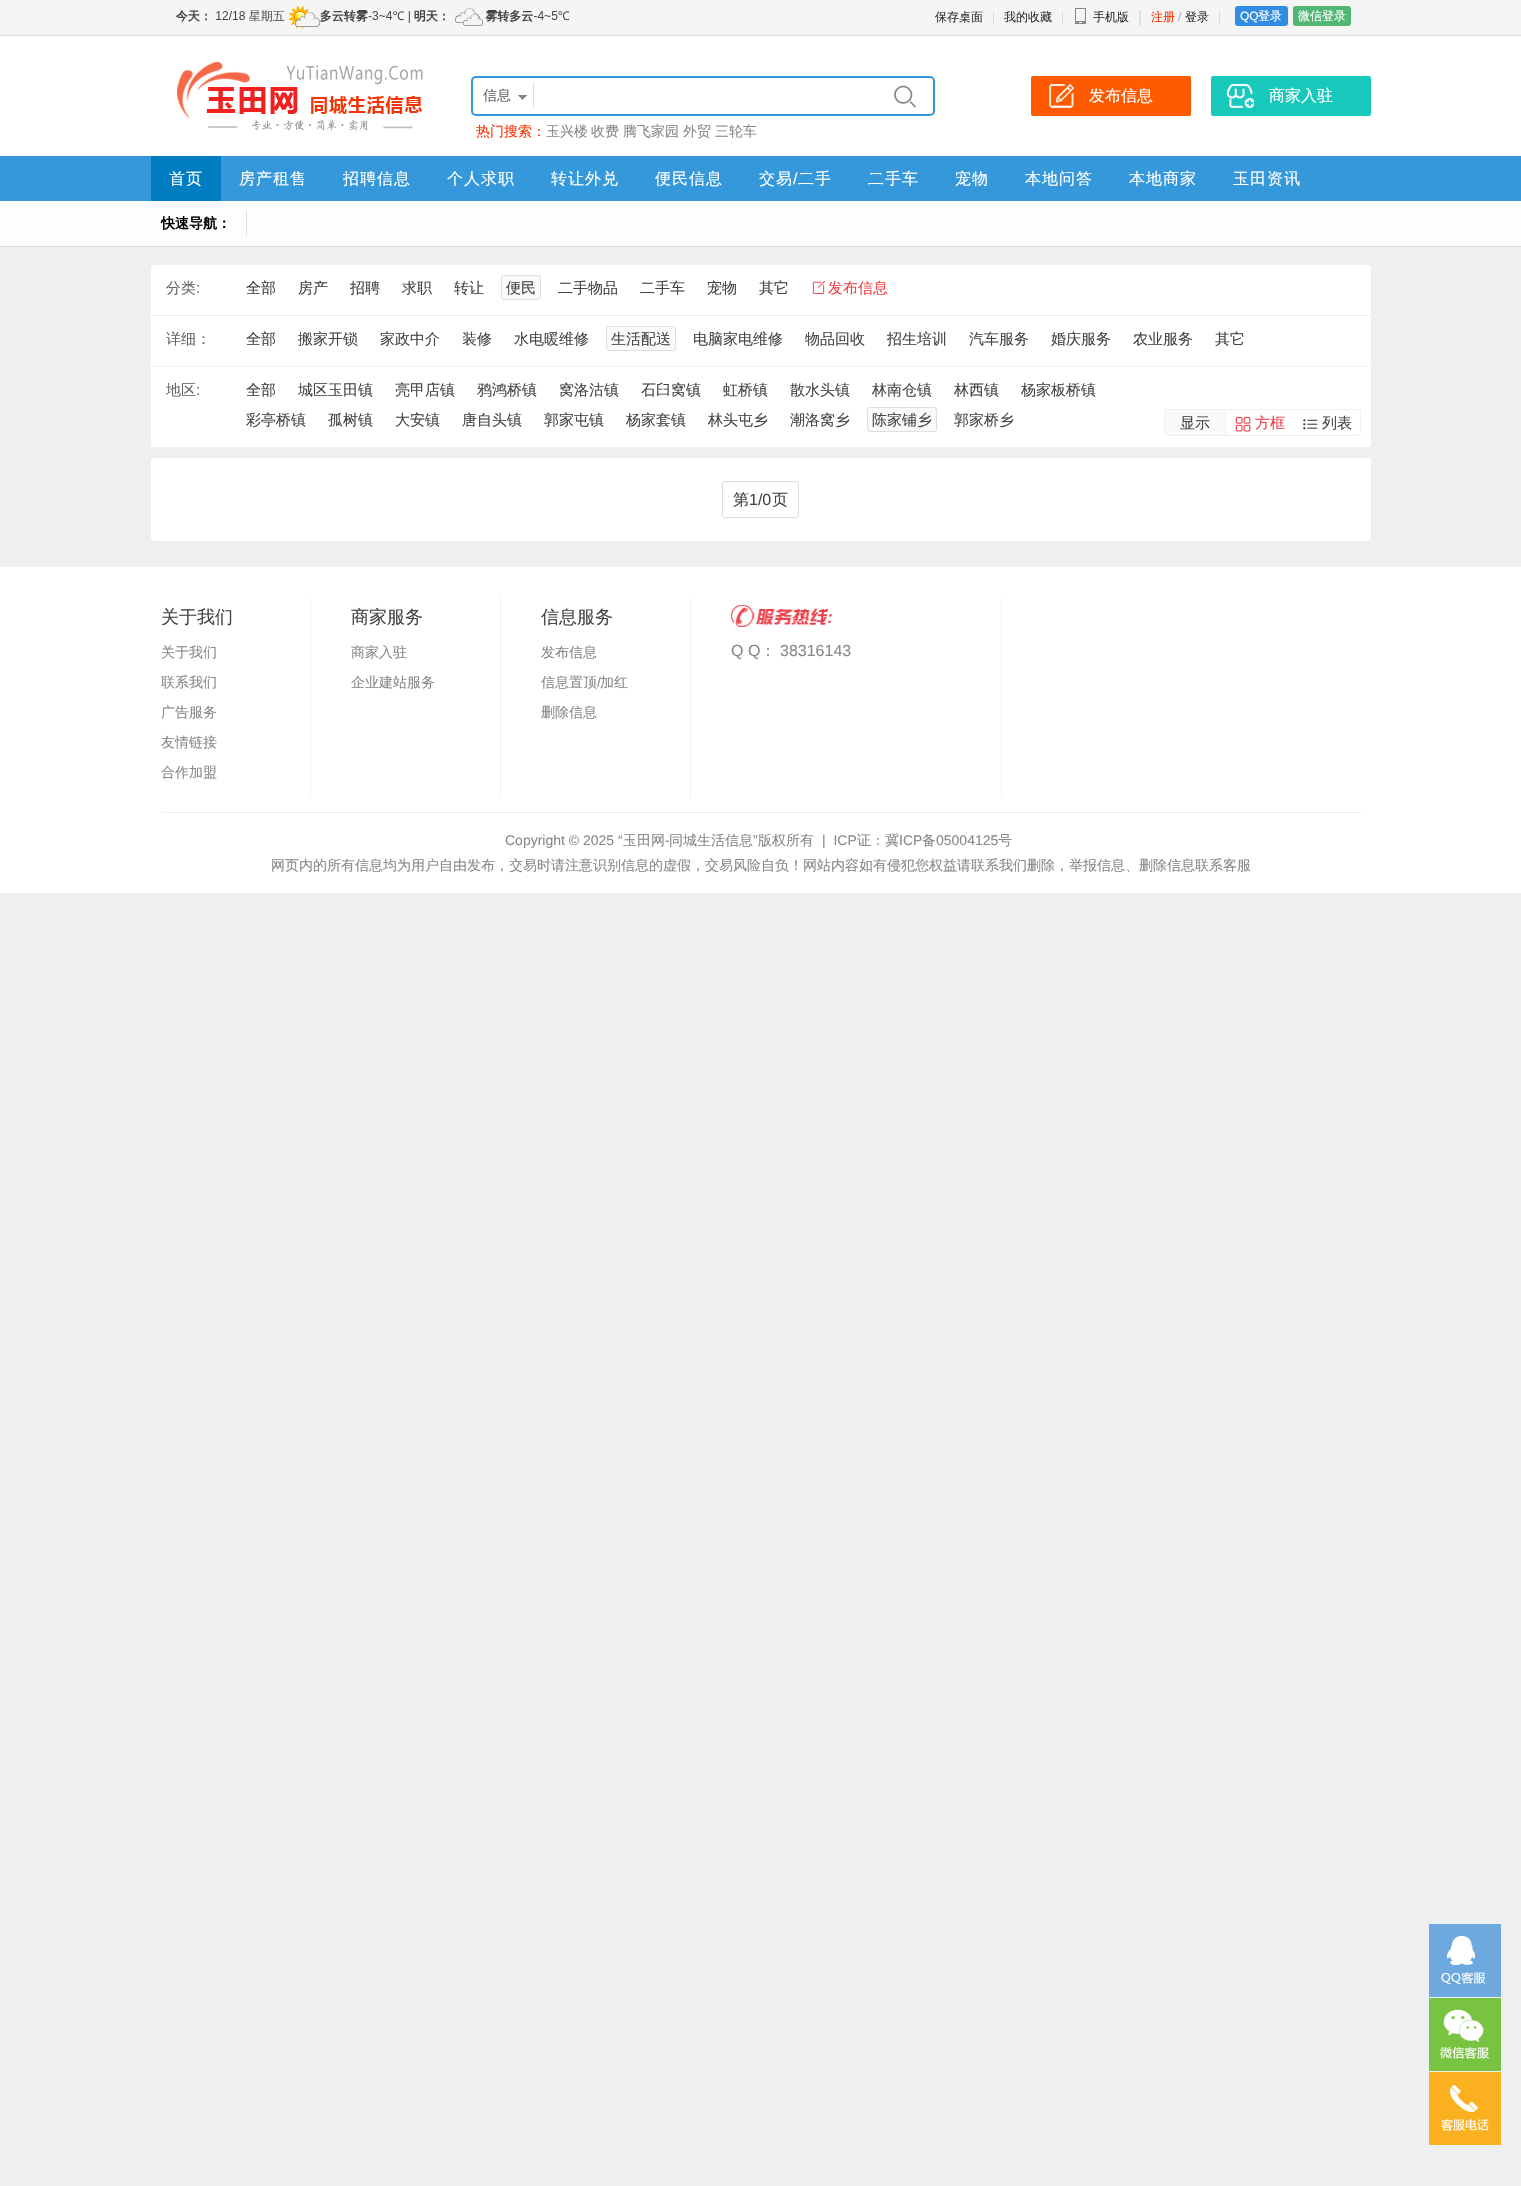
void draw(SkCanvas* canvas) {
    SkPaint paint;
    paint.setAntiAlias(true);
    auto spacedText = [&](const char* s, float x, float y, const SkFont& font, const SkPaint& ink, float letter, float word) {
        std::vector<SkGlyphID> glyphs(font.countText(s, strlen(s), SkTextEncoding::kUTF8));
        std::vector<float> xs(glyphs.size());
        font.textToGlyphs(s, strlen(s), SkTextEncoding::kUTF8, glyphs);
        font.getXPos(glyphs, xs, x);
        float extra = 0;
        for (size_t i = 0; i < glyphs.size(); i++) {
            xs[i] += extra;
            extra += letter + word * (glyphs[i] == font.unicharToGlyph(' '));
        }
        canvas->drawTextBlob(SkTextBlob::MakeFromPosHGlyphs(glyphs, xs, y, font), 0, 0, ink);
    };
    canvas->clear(0xFFEEEFF1);
    paint.setColor(0xFFF5F5F5);
    canvas->drawRect(SkRect::MakeXYWH(0, 0, 1521, 35), paint);
    paint.setColor(0xFFDEDEDE);
    canvas->drawRect(SkRect::MakeXYWH(0, 35, 1521, 1), paint);
    canvas->drawImageRect(SkImages::DeferredFromEncodedData(SkData::MakeFromFileName("img1.png")), SkRect::MakeXYWH(176, 5, 394, 24), SkSamplingOptions());
    SkFont font1(fontMgr->matchFamilyStyle("WenQuanYi Zen Hei", SkFontStyle(500, SkFontStyle::kNormal_Width, SkFontStyle::kUpright_Slant)), 12);
    font1.setSubpixel(true);
    paint.setColor(0xFF333333);
    canvas->drawString("保存桌面", 935, 21, font1, paint);
    paint.setColor(0xFFDDDDDD);
    canvas->drawRect(SkRect::MakeXYWH(993, 10, 1, 15), paint);
    paint.setColor(0xFFEFEFEF);
    canvas->drawRect(SkRect::MakeXYWH(993, 10, 1, 1), paint);
    paint.setColor(0xFF333333);
    canvas->drawString("我的收藏", 1004, 21, font1, paint);
    paint.setColor(0xFFDDDDDD);
    canvas->drawRect(SkRect::MakeXYWH(1062, 10, 1, 15), paint);
    paint.setColor(0xFFEFEFEF);
    canvas->drawRect(SkRect::MakeXYWH(1062, 10, 1, 1), paint);
    canvas->drawImageRect(SkImages::DeferredFromEncodedData(SkData::MakeFromFileName("img2.png")), SkRect::MakeXYWH(1075, 8, 11, 16), SkSamplingOptions());
    paint.setColor(0xFF333333);
    canvas->drawString("手机版", 1093, 21, font1, paint);
    paint.setColor(0xFFDDDDDD);
    canvas->drawRect(SkRect::MakeXYWH(1139, 10, 2, 15), paint);
    paint.setColor(0xFFEFEFEF);
    canvas->drawRect(SkRect::MakeXYWH(1139, 10, 2, 1), paint);
    paint.setColor(0xFFFF3300);
    canvas->drawString("注册", 1151, 21, font1, paint);
    SkFont font2(fontMgr->matchFamilyStyle("Liberation Sans", SkFontStyle::Normal()), 12);
    font2.setSubpixel(true);
    paint.setColor(0xFFAAAAAA);
    canvas->drawString("/", 1178, 21, font2, paint);
    paint.setColor(0xFF333333);
    canvas->drawString("登录", 1185, 21, font1, paint);
    paint.setColor(0xFFDDDDDD);
    canvas->drawRect(SkRect::MakeXYWH(1219, 10, 1, 15), paint);
    paint.setColor(0xFFEFEFEF);
    canvas->drawRect(SkRect::MakeXYWH(1219, 10, 1, 1), paint);
    paint.setColor(0xFF318DE4);
    canvas->drawRoundRect(SkRect::MakeXYWH(1235, 6, 53, 20), 3, 3, paint);
    paint.setColor(0xFFFFFFFF);
    canvas->drawString("QQ", 1240, 20, font2, paint);
    canvas->drawString("登录", 1258, 20, font1, paint);
    paint.setColor(0xFF50B674);
    canvas->drawRoundRect(SkRect::MakeXYWH(1293, 6, 58, 20), 3, 3, paint);
    paint.setColor(0xFFFFFFFF);
    canvas->drawString("微信登录", 1298, 20, font1, paint);
    canvas->drawRect(SkRect::MakeXYWH(0, 36, 1521, 120), paint);
    canvas->drawImageRect(SkImages::DeferredFromEncodedData(SkData::MakeFromFileName("img3.png")), SkRect::MakeXYWH(177, 62, 246, 69), SkSamplingOptions());
    paint.setStyle(SkPaint::kStroke_Style);
    paint.setStrokeWidth(2);
    paint.setColor(0xFF3598DB);
    canvas->drawRoundRect(SkRect::MakeXYWH(472, 77, 462, 38), 4, 4, paint);
    canvas->drawImageRect(SkImages::DeferredFromEncodedData(SkData::MakeFromFileName("img4.png")), SkRect::MakeXYWH(518, 95, 9, 5), SkSamplingOptions());
    paint.setStyle(SkPaint::kFill_Style);
    paint.setColor(0xFFDEDEDE);
    canvas->drawRect(SkRect::MakeXYWH(533, 83, 1, 25), paint);
    SkFont font3(fontMgr->matchFamilyStyle("WenQuanYi Zen Hei", SkFontStyle(500, SkFontStyle::kNormal_Width, SkFontStyle::kUpright_Slant)), 14);
    font3.setSubpixel(true);
    paint.setColor(0xFF666666);
    canvas->drawString("信息", 483, 100, font3, paint);
    canvas->drawImageRect(SkImages::DeferredFromEncodedData(SkData::MakeFromFileName("img5.png")), SkRect::MakeXYWH(894, 85, 22, 23), SkSamplingOptions());
    paint.setColor(0xFFFF3300);
    canvas->drawString("热门搜索：", 476, 136, font3, paint);
    paint.setColor(0xFF888888);
    canvas->drawString("玉兴楼", 546, 136, font3, paint);
    canvas->drawString("收费", 591, 136, font3, paint);
    canvas->drawString("腾飞家园", 623, 136, font3, paint);
    canvas->drawString("外贸", 683, 136, font3, paint);
    canvas->drawString("三轮车", 715, 136, font3, paint);
    paint.setColor(0xFFFF5A00);
    canvas->drawRoundRect(SkRect::MakeXYWH(1031, 76, 160, 40), 2, 2, paint);
    canvas->drawImageRect(SkImages::DeferredFromEncodedData(SkData::MakeFromFileName("img6.png")), SkRect::MakeXYWH(1049, 84, 25, 24), SkSamplingOptions());
    SkFont font4(fontMgr->matchFamilyStyle("WenQuanYi Zen Hei", SkFontStyle(500, SkFontStyle::kNormal_Width, SkFontStyle::kUpright_Slant)), 16);
    font4.setSubpixel(true);
    paint.setColor(0xFFFFFFFF);
    canvas->drawString("发布信息", 1089, 101, font4, paint);
    paint.setColor(0xFF18C8BB);
    canvas->drawRoundRect(SkRect::MakeXYWH(1211, 76, 160, 40), 2, 2, paint);
    canvas->drawImageRect(SkImages::DeferredFromEncodedData(SkData::MakeFromFileName("img7.png")), SkRect::MakeXYWH(1227, 84, 27, 24), SkSamplingOptions());
    paint.setColor(0xFFFFFFFF);
    canvas->drawString("商家入驻", 1269, 101, font4, paint);
    paint.setColor(0xFF3598DB);
    canvas->drawRect(SkRect::MakeXYWH(0, 156, 1521, 45), paint);
    paint.setColor(0xFF007CC3);
    canvas->drawRect(SkRect::MakeXYWH(151, 156, 70, 45), paint);
    paint.setColor(0xFFFFFFFF);
    spacedText("首页", 169, 184, font4, paint, 1, 0);
    spacedText("房产租售", 239, 184, font4, paint, 1, 0);
    spacedText("招聘信息", 343, 184, font4, paint, 1, 0);
    spacedText("个人求职", 447, 184, font4, paint, 1, 0);
    spacedText("转让外兑", 551, 184, font4, paint, 1, 0);
    spacedText("便民信息", 655, 184, font4, paint, 1, 0);
    spacedText("交易", 759, 184, font4, paint, 1, 0);
    SkFont font5(fontMgr->matchFamilyStyle("Liberation Sans", SkFontStyle::Normal()), 16);
    font5.setSubpixel(true);
    spacedText("/", 793, 184, font5, paint, 1, 0);
    spacedText("二手", 798, 184, font4, paint, 1, 0);
    spacedText("二手车", 868, 184, font4, paint, 1, 0);
    spacedText("宠物", 955, 184, font4, paint, 1, 0);
    spacedText("本地问答", 1025, 184, font4, paint, 1, 0);
    spacedText("本地商家", 1129, 184, font4, paint, 1, 0);
    spacedText("玉田资讯", 1233, 184, font4, paint, 1, 0);
    paint.setColor(0xFFFDFDFD);
    canvas->drawRect(SkRect::MakeXYWH(0, 201, 1521, 45), paint);
    paint.setColor(0xFFDEDEDE);
    canvas->drawRect(SkRect::MakeXYWH(0, 246, 1521, 1), paint);
    canvas->drawRect(SkRect::MakeXYWH(246, 211, 1, 25), paint);
    SkFont font6(fontMgr->matchFamilyStyle("WenQuanYi Zen Hei", SkFontStyle::Bold()), 14);
    font6.setSubpixel(true);
    paint.setColor(0xFF000000);
    canvas->drawString("快速导航：", 161, 228, font6, paint);
    paint.setColor(0xFFFFFFFF);
    canvas->drawRoundRect(SkRect::MakeXYWH(151, 265, 1220, 183), 3, 3, paint);
    paint.setColor(0xFFF0F0F0);
    canvas->drawRect(SkRect::MakeXYWH(151, 315, 1220, 1), paint);
    SkFont font7(fontMgr->matchFamilyStyle("WenQuanYi Zen Hei", SkFontStyle(500, SkFontStyle::kNormal_Width, SkFontStyle::kUpright_Slant)), 15);
    font7.setSubpixel(true);
    paint.setColor(0xFF666666);
    canvas->drawString("分类", 166, 293, font7, paint);
    SkFont font8(fontMgr->matchFamilyStyle("Liberation Sans", SkFontStyle::Normal()), 15);
    font8.setSubpixel(true);
    canvas->drawString(":", 196, 293, font8, paint);
    paint.setColor(0xFF444444);
    canvas->drawString("全部", 246, 293, font7, paint);
    canvas->drawString("房产", 298, 293, font7, paint);
    canvas->drawString("招聘", 350, 293, font7, paint);
    canvas->drawString("求职", 402, 293, font7, paint);
    canvas->drawString("转让", 454, 293, font7, paint);
    paint.setColor(0xFFFAFAFA);
    canvas->drawRoundRect(SkRect::MakeXYWH(501.5f, 275.5f, 39, 24), 2.5f, 2.5f, paint);
    paint.setStyle(SkPaint::kStroke_Style);
    paint.setStrokeWidth(1);
    paint.setColor(0xFFDEDEDE);
    canvas->drawRoundRect(SkRect::MakeXYWH(501.5f, 275.5f, 39, 24), 2.5f, 2.5f, paint);
    paint.setStyle(SkPaint::kFill_Style);
    paint.setColor(0xFF444444);
    canvas->drawString("便民", 506, 293, font7, paint);
    canvas->drawString("二手物品", 558, 293, font7, paint);
    canvas->drawString("二手车", 640, 293, font7, paint);
    canvas->drawString("宠物", 707, 293, font7, paint);
    canvas->drawString("其它", 759, 293, font7, paint);
    canvas->drawImageRect(SkImages::DeferredFromEncodedData(SkData::MakeFromFileName("img8.png")), SkRect::MakeXYWH(812, 280, 13, 14), SkSamplingOptions());
    paint.setColor(0xFFED414A);
    canvas->drawString("发布信息", 828, 293, font7, paint);
    paint.setColor(0xFFF0F0F0);
    canvas->drawRect(SkRect::MakeXYWH(151, 366, 1220, 1), paint);
    paint.setColor(0xFF666666);
    canvas->drawString("详细：", 166, 344, font7, paint);
    paint.setColor(0xFF444444);
    canvas->drawString("全部", 246, 344, font7, paint);
    canvas->drawString("搬家开锁", 298, 344, font7, paint);
    canvas->drawString("家政中介", 380, 344, font7, paint);
    canvas->drawString("装修", 462, 344, font7, paint);
    canvas->drawString("水电暖维修", 514, 344, font7, paint);
    paint.setColor(0xFFFAFAFA);
    canvas->drawRoundRect(SkRect::MakeXYWH(606.5f, 326.5f, 69, 24), 2.5f, 2.5f, paint);
    paint.setStyle(SkPaint::kStroke_Style);
    paint.setColor(0xFFDEDEDE);
    canvas->drawRoundRect(SkRect::MakeXYWH(606.5f, 326.5f, 69, 24), 2.5f, 2.5f, paint);
    paint.setStyle(SkPaint::kFill_Style);
    paint.setColor(0xFF444444);
    canvas->drawString("生活配送", 611, 344, font7, paint);
    canvas->drawString("电脑家电维修", 693, 344, font7, paint);
    canvas->drawString("物品回收", 805, 344, font7, paint);
    canvas->drawString("招生培训", 887, 344, font7, paint);
    canvas->drawString("汽车服务", 969, 344, font7, paint);
    canvas->drawString("婚庆服务", 1051, 344, font7, paint);
    canvas->drawString("农业服务", 1133, 344, font7, paint);
    canvas->drawString("其它", 1215, 344, font7, paint);
    paint.setColor(0xFFF0F0F0);
    canvas->drawRect(SkRect::MakeXYWH(151, 447, 1220, 1), paint);
    paint.setColor(0xFF666666);
    canvas->drawString("地区", 166, 395, font7, paint);
    canvas->drawString(":", 196, 395, font8, paint);
    paint.setColor(0xFF444444);
    canvas->drawString("全部", 246, 395, font7, paint);
    canvas->drawString("城区玉田镇", 298, 395, font7, paint);
    canvas->drawString("亮甲店镇", 395, 395, font7, paint);
    canvas->drawString("鸦鸿桥镇", 477, 395, font7, paint);
    canvas->drawString("窝洛沽镇", 559, 395, font7, paint);
    canvas->drawString("石臼窝镇", 641, 395, font7, paint);
    canvas->drawString("虹桥镇", 723, 395, font7, paint);
    canvas->drawString("散水头镇", 790, 395, font7, paint);
    canvas->drawString("林南仓镇", 872, 395, font7, paint);
    canvas->drawString("林西镇", 954, 395, font7, paint);
    canvas->drawString("杨家板桥镇", 1021, 395, font7, paint);
    canvas->drawString("彩亭桥镇", 246, 425, font7, paint);
    canvas->drawString("孤树镇", 328, 425, font7, paint);
    canvas->drawString("大安镇", 395, 425, font7, paint);
    canvas->drawString("唐自头镇", 462, 425, font7, paint);
    canvas->drawString("郭家屯镇", 544, 425, font7, paint);
    canvas->drawString("杨家套镇", 626, 425, font7, paint);
    canvas->drawString("林头屯乡", 708, 425, font7, paint);
    canvas->drawString("潮洛窝乡", 790, 425, font7, paint);
    paint.setColor(0xFFFAFAFA);
    canvas->drawRoundRect(SkRect::MakeXYWH(867.5f, 407.5f, 69, 24), 2.5f, 2.5f, paint);
    paint.setStyle(SkPaint::kStroke_Style);
    paint.setColor(0xFFDEDEDE);
    canvas->drawRoundRect(SkRect::MakeXYWH(867.5f, 407.5f, 69, 24), 2.5f, 2.5f, paint);
    paint.setStyle(SkPaint::kFill_Style);
    paint.setColor(0xFF444444);
    canvas->drawString("陈家铺乡", 872, 425, font7, paint);
    canvas->drawString("郭家桥乡", 954, 425, font7, paint);
    paint.setStyle(SkPaint::kStroke_Style);
    paint.setColor(0xFFF1F1F1);
    canvas->drawRoundRect(SkRect::MakeXYWH(1164.5f, 409.5f, 196, 26), 2.5f, 2.5f, paint);
    paint.setStyle(SkPaint::kFill_Style);
    paint.setColor(0xFFFAFAFA);
    canvas->drawPath(SkPathBuilder().moveTo(1167, 410).lineTo(1226, 410).lineTo(1226, 435).lineTo(1167, 435).cubicTo(1166, 435, 1165, 434, 1165, 433).lineTo(1165, 412).cubicTo(1165, 411, 1166, 410, 1167, 410).close().detach(), paint);
    paint.setColor(0xFFF1F1F1);
    canvas->drawRect(SkRect::MakeXYWH(1225, 410, 1, 25), paint);
    paint.setColor(0xFF444444);
    canvas->drawString("显示", 1180, 428, font7, paint);
    canvas->drawImageRect(SkImages::DeferredFromEncodedData(SkData::MakeFromFileName("img9.png")), SkRect::MakeXYWH(1235, 416, 16, 16), SkSamplingOptions());
    paint.setColor(0xFFED414A);
    canvas->drawString("方框", 1255, 428, font7, paint);
    canvas->drawImageRect(SkImages::DeferredFromEncodedData(SkData::MakeFromFileName("img10.png")), SkRect::MakeXYWH(1303, 419, 15, 11), SkSamplingOptions());
    paint.setColor(0xFF444444);
    canvas->drawString("列表", 1322, 428, font7, paint);
    paint.setColor(0xFFFFFFFF);
    canvas->drawRoundRect(SkRect::MakeXYWH(151, 458, 1220, 83), 3, 3, paint);
    paint.setStyle(SkPaint::kStroke_Style);
    paint.setColor(0xFFDDDDDD);
    canvas->drawRoundRect(SkRect::MakeXYWH(722.5f, 481.5f, 76, 36), 2.5f, 2.5f, paint);
    paint.setStyle(SkPaint::kFill_Style);
    paint.setColor(0xFF444444);
    canvas->drawString("第", 733, 505, font4, paint);
    canvas->drawString("1/0", 749, 505, font5, paint);
    canvas->drawString("页", 772, 505, font4, paint);
    paint.setColor(0xFFFFFFFF);
    canvas->drawRect(SkRect::MakeXYWH(0, 567, 1521, 326), paint);
    paint.setColor(0xFFF1F1F1);
    canvas->drawRect(SkRect::MakeXYWH(0, 566, 1521, 1), paint);
    canvas->drawRect(SkRect::MakeXYWH(310, 597, 1, 200), paint);
    SkFont font9(fontMgr->matchFamilyStyle("WenQuanYi Zen Hei", SkFontStyle(500, SkFontStyle::kNormal_Width, SkFontStyle::kUpright_Slant)), 18);
    font9.setSubpixel(true);
    paint.setColor(0xFF444444);
    canvas->drawString("关于我们", 161, 623, font9, paint);
    paint.setColor(0xFF888888);
    canvas->drawString("关于我们", 161, 657, font3, paint);
    canvas->drawString("联系我们", 161, 687, font3, paint);
    canvas->drawString("广告服务", 161, 717, font3, paint);
    canvas->drawString("友情链接", 161, 747, font3, paint);
    canvas->drawString("合作加盟", 161, 777, font3, paint);
    paint.setColor(0xFFF1F1F1);
    canvas->drawRect(SkRect::MakeXYWH(500, 597, 1, 200), paint);
    paint.setColor(0xFF444444);
    canvas->drawString("商家服务", 351, 623, font9, paint);
    paint.setColor(0xFF888888);
    canvas->drawString("商家入驻", 351, 657, font3, paint);
    canvas->drawString("企业建站服务", 351, 687, font3, paint);
    paint.setColor(0xFFF1F1F1);
    canvas->drawRect(SkRect::MakeXYWH(690, 597, 1, 200), paint);
    paint.setColor(0xFF444444);
    canvas->drawString("信息服务", 541, 623, font9, paint);
    paint.setColor(0xFF888888);
    canvas->drawString("发布信息", 541, 657, font3, paint);
    canvas->drawString("信息置顶", 541, 687, font3, paint);
    SkFont font10(fontMgr->matchFamilyStyle("Liberation Sans", SkFontStyle::Normal()), 14);
    font10.setSubpixel(true);
    canvas->drawString("/", 597, 687, font10, paint);
    canvas->drawString("加红", 600, 687, font3, paint);
    canvas->drawString("删除信息", 541, 717, font3, paint);
    paint.setColor(0xFFF1F1F1);
    canvas->drawRect(SkRect::MakeXYWH(1001, 597, 1, 200), paint);
    canvas->drawImageRect(SkImages::DeferredFromEncodedData(SkData::MakeFromFileName("img11.png")), SkRect::MakeXYWH(731, 605, 101, 22), SkSamplingOptions());
    paint.setColor(0xFF888888);
    canvas->drawString("Q Q", 731, 656, font5, paint);
    canvas->drawString("：", 760, 656, font4, paint);
    canvas->drawString("38316143", 780, 656, font5, paint);
    paint.setColor(0xFFF1F1F1);
    canvas->drawRect(SkRect::MakeXYWH(161, 812, 1200, 1), paint);
    paint.setColor(0xFF888888);
    canvas->drawString("Copyright © 2025 “", 505, 845, font10, paint);
    canvas->drawString("玉田网", 623, 845, font3, paint);
    canvas->drawString("-", 665, 845, font10, paint);
    canvas->drawString("同城生活信息", 669, 845, font3, paint);
    canvas->drawString("”", 753, 845, font10, paint);
    canvas->drawString("版权所有", 758, 845, font3, paint);
    canvas->drawString("|  ICP", 822, 845, font10, paint);
    canvas->drawString("证：冀", 857, 845, font3, paint);
    canvas->drawString("ICP", 899, 845, font10, paint);
    canvas->drawString("备", 922, 845, font3, paint);
    canvas->drawString("05004125", 936, 845, font10, paint);
    canvas->drawString("号", 998, 845, font3, paint);
    canvas->drawString("网页内的所有信息均为用户自由发布，交易时请注意识别信息的虚假，交易风险自负！网站内容如有侵犯您权益请联系我们删除，举报信息、删除信息联系客服", 271, 870, font3, paint);
    paint.setColor(0xFF6DA9DE);
    canvas->drawRect(SkRect::MakeXYWH(1429, 1924, 72, 73), paint);
    canvas->drawImageRect(SkImages::DeferredFromEncodedData(SkData::MakeFromFileName("img12.png")), SkRect::MakeXYWH(1441, 1936, 45, 48), SkSamplingOptions());
    paint.setColor(0xFF78C340);
    canvas->drawRect(SkRect::MakeXYWH(1429, 1998, 72, 73), paint);
    canvas->drawImageRect(SkImages::DeferredFromEncodedData(SkData::MakeFromFileName("img13.png")), SkRect::MakeXYWH(1440, 2009, 49, 50), SkSamplingOptions());
    paint.setColor(0xFFFBB01F);
    canvas->drawRect(SkRect::MakeXYWH(1429, 2072, 72, 73), paint);
    canvas->drawImageRect(SkImages::DeferredFromEncodedData(SkData::MakeFromFileName("img14.png")), SkRect::MakeXYWH(1441, 2085, 48, 46), SkSamplingOptions());
}
